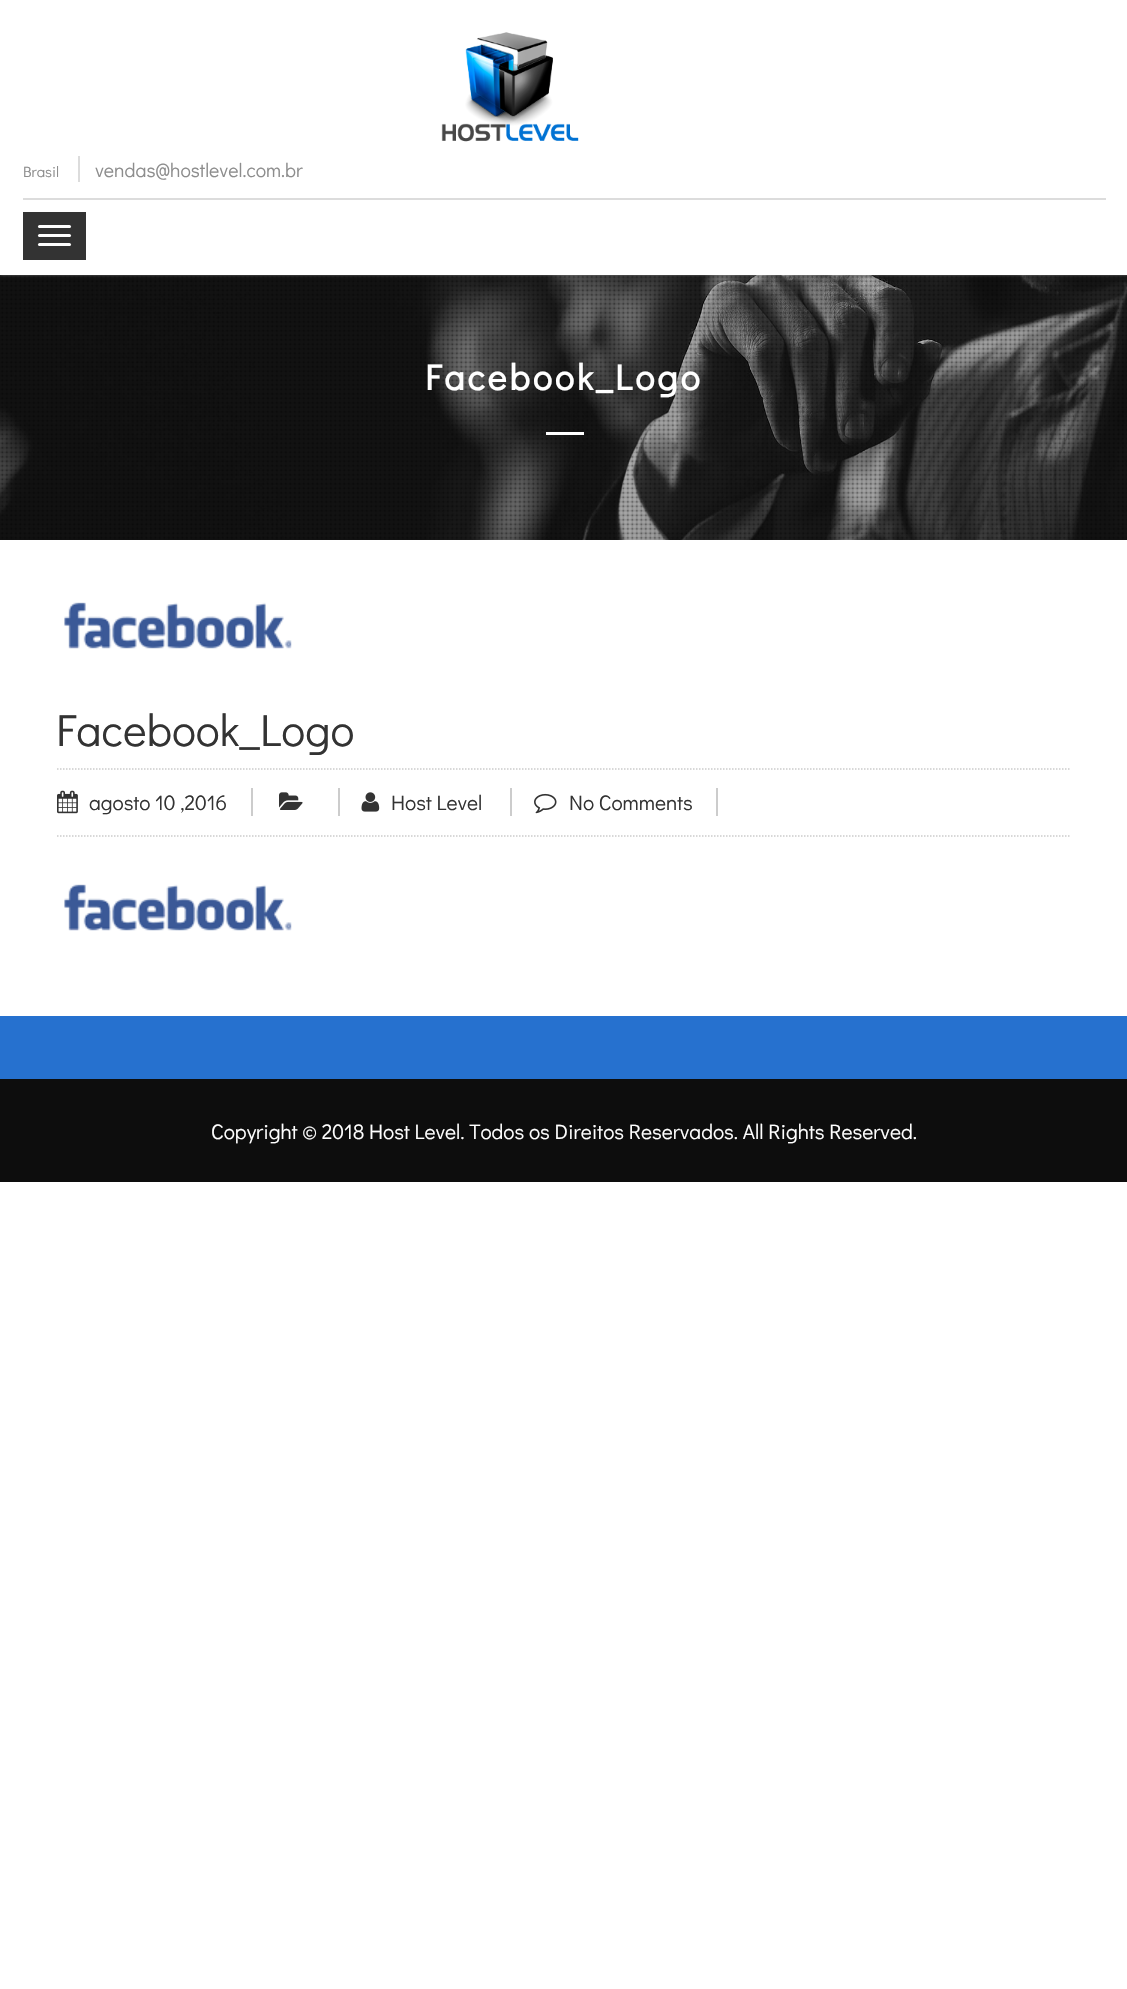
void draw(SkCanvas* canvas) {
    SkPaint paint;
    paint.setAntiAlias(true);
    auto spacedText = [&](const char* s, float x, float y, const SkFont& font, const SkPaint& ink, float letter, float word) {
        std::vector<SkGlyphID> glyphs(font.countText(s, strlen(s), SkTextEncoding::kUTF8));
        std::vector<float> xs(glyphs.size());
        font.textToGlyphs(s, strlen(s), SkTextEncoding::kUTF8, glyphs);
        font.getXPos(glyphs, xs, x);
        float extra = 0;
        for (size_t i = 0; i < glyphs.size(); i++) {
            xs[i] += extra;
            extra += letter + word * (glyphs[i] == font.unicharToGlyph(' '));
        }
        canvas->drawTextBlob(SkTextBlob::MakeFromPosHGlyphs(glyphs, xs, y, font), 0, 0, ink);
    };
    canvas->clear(0xFFFFFFFF);
    canvas->drawImageRect(SkImages::DeferredFromEncodedData(SkData::MakeFromFileName("img2.png")), SkRect::MakeXYWH(0, 275, 1127, 265), SkSamplingOptions());
    canvas->drawImageRect(SkImages::DeferredFromEncodedData(SkData::MakeFromFileName("img3.png")), SkRect::MakeXYWH(0, 275, 1127, 265), SkSamplingOptions());
    paint.setColor(0xFF666666);
    paint.setMaskFilter(SkMaskFilter::MakeBlur(kNormal_SkBlurStyle, 1.5f));
    canvas->drawRect(SkRect::MakeXYWH(0, 0, 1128, 275), paint);
    paint.setMaskFilter(nullptr);
    paint.setColor(0xFFFFFFFF);
    canvas->drawRect(SkRect::MakeXYWH(0, 0, 1127, 275), paint);
    canvas->drawImageRect(SkImages::DeferredFromEncodedData(SkData::MakeFromFileName("img1.png")), SkRect::MakeXYWH(441, 32, 138, 110), SkSamplingOptions());
    paint.setColor(0xFFDCDCDC);
    canvas->drawRect(SkRect::MakeXYWH(23, 198, 1083, 2), paint);
    SkFont font1(fontMgr->matchFamilyStyle("Didact Gothic", SkFontStyle::Normal()), 15);
    font1.setSubpixel(true);
    paint.setColor(0xFF8D8D8D);
    canvas->drawString("Brasil", 23, 177, font1, paint);
    SkFont font2(fontMgr->matchFamilyStyle("Didact Gothic", SkFontStyle::Normal()), 19.5f);
    font2.setSubpixel(true);
    canvas->drawString("vendas@hostlevel.com.br", 95, 177, font2, paint);
    paint.setColor(0xFFDCDCDC);
    canvas->drawRect(SkRect::MakeXYWH(78, 156, 2, 26), paint);
    paint.setColor(0xFF333333);
    canvas->drawRect(SkRect::MakeXYWH(23, 212, 63, 48), paint);
    paint.setColor(0xFFFFFFFF);
    canvas->drawRoundRect(SkRect::MakeXYWH(38, 225, 33, 3), 1.5f, 1.5f, paint);
    canvas->drawRoundRect(SkRect::MakeXYWH(38, 234, 33, 3), 1.5f, 1.5f, paint);
    canvas->drawRoundRect(SkRect::MakeXYWH(38, 243, 33, 3), 1.5f, 1.5f, paint);
    SkFont font3(fontMgr->matchFamilyStyle("Didact Gothic", SkFontStyle::Bold()), 36);
    font3.setSubpixel(true);
    spacedText("Facebook_Logo", 425, 390, font3, paint, 3, 0);
    canvas->drawRect(SkRect::MakeXYWH(546, 432, 38, 3), paint);
    canvas->drawImageRect(SkImages::DeferredFromEncodedData(SkData::MakeFromFileName("img4.png")), SkRect::MakeXYWH(64, 602, 228, 47), SkSamplingOptions());
    SkFont font4(fontMgr->matchFamilyStyle("Didact Gothic", SkFontStyle::Normal()), 45);
    font4.setSubpixel(true);
    paint.setColor(0xFF333333);
    canvas->drawString("Facebook_Logo", 56, 746, font4, paint);
    paint.setStyle(SkPaint::kStroke_Style);
    paint.setStrokeWidth(1.5f);
    paint.setColor(0xFFCCCCCC);
    paint.setPathEffect(SkDashPathEffect::Make({{1.5f, 1.5f}}, 0));
    canvas->drawPath(SkPathBuilder().moveTo(57, 769).lineTo(1071, 769).detach(), paint);
    paint.setPathEffect(nullptr);
    paint.setPathEffect(SkDashPathEffect::Make({{1.5f, 1.5f}}, 0));
    canvas->drawPath(SkPathBuilder().moveTo(57, 836).lineTo(1071, 836).detach(), paint);
    paint.setPathEffect(nullptr);
    canvas->drawImageRect(SkImages::DeferredFromEncodedData(SkData::MakeFromFileName("img5.png")), SkRect::MakeXYWH(57, 790, 21, 24), SkSamplingOptions());
    SkFont font5(fontMgr->matchFamilyStyle("Didact Gothic", SkFontStyle::Normal()), 21);
    font5.setSubpixel(true);
    paint.setStyle(SkPaint::kFill_Style);
    paint.setColor(0xFF333333);
    canvas->drawString("agosto 10 ,2016", 89, 810, font5, paint);
    paint.setColor(0xFFCCCCCC);
    canvas->drawRect(SkRect::MakeXYWH(251, 788, 2, 28), paint);
    canvas->drawImageRect(SkImages::DeferredFromEncodedData(SkData::MakeFromFileName("img6.png")), SkRect::MakeXYWH(279, 792, 24, 18), SkSamplingOptions());
    canvas->drawRect(SkRect::MakeXYWH(338, 788, 2, 28), paint);
    canvas->drawImageRect(SkImages::DeferredFromEncodedData(SkData::MakeFromFileName("img7.png")), SkRect::MakeXYWH(361, 792, 19, 20), SkSamplingOptions());
    paint.setColor(0xFF333333);
    canvas->drawString("Host Level", 391, 810, font5, paint);
    paint.setColor(0xFFCCCCCC);
    canvas->drawRect(SkRect::MakeXYWH(510, 788, 2, 28), paint);
    canvas->drawImageRect(SkImages::DeferredFromEncodedData(SkData::MakeFromFileName("img8.png")), SkRect::MakeXYWH(534, 793, 23, 21), SkSamplingOptions());
    paint.setColor(0xFF333333);
    canvas->drawString("No Comments", 569, 810, font5, paint);
    paint.setColor(0xFFCCCCCC);
    canvas->drawRect(SkRect::MakeXYWH(716, 788, 2, 28), paint);
    canvas->drawImageRect(SkImages::DeferredFromEncodedData(SkData::MakeFromFileName("img9.png")), SkRect::MakeXYWH(64, 884, 228, 47), SkSamplingOptions());
    paint.setColor(0xFF2671CF);
    canvas->drawRect(SkRect::MakeXYWH(0, 1016, 1127, 63), paint);
    paint.setColor(0xFF0D0D0D);
    canvas->drawRect(SkRect::MakeXYWH(0, 1079, 1127, 103), paint);
    paint.setColor(0xFFFFFFFF);
    canvas->drawString("Copyright © 2018 Host Level. Todos os Direitos Reservados. All Rights Reserved.", 211, 1139, font5, paint);
}
